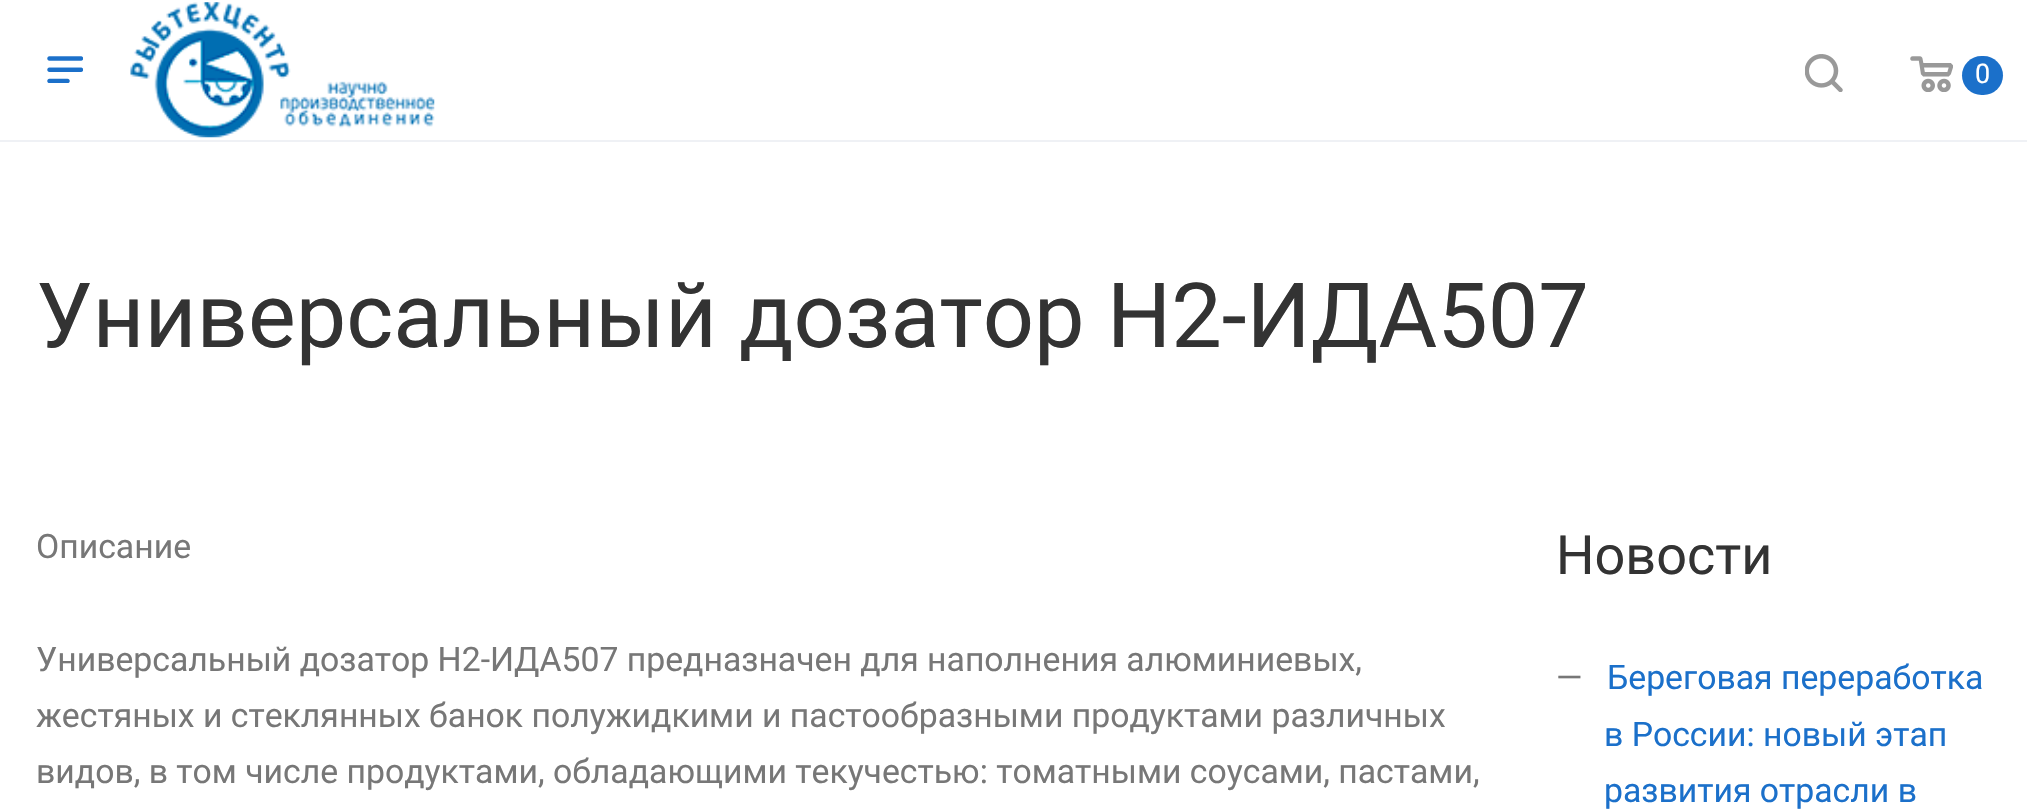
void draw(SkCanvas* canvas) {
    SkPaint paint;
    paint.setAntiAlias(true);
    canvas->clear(0xFFFFFFFF);
    paint.setColor(0xFFEFF1F5);
    canvas->drawRect(SkRect::MakeXYWH(0, 140, 2027, 2), paint);
    canvas->drawImageRect(SkImages::DeferredFromEncodedData(SkData::MakeFromFileName("img1.png")), SkRect::MakeXYWH(47, 56, 36, 27), SkSamplingOptions());
    canvas->drawImageRect(SkImages::DeferredFromEncodedData(SkData::MakeFromFileName("img2.png")), SkRect::MakeXYWH(130, 2, 305, 136), SkSamplingOptions());
    canvas->drawImageRect(SkImages::DeferredFromEncodedData(SkData::MakeFromFileName("img3.png")), SkRect::MakeXYWH(1805, 54, 38, 38), SkSamplingOptions());
    canvas->drawImageRect(SkImages::DeferredFromEncodedData(SkData::MakeFromFileName("img4.png")), SkRect::MakeXYWH(1910, 56, 43, 36), SkSamplingOptions());
    paint.setColor(0xFF1B70CA);
    canvas->drawRoundRect(SkRect::MakeXYWH(1962, 56, 41, 39), 19.5f, 19.5f, paint);
    SkFont font1(fontMgr->matchFamilyStyle("Roboto", SkFontStyle::Normal()), 27);
    font1.setSubpixel(true);
    paint.setColor(0xFFFFFFFF);
    canvas->drawString("0", 1975, 83, font1, paint);
    SkFont font2(fontMgr->matchFamilyStyle("Roboto", SkFontStyle::Normal()), 90);
    font2.setSubpixel(true);
    paint.setColor(0xFF333333);
    canvas->drawString("Универсальный дозатор Н2-ИДА507", 36, 347, font2, paint);
    SkFont font3(fontMgr->matchFamilyStyle("Roboto", SkFontStyle::Normal()), 33.75f);
    font3.setSubpixel(true);
    paint.setColor(0xFF777777);
    canvas->drawString("Описание", 36, 558, font3, paint);
    canvas->drawString("Универсальный дозатор Н2-ИДА507 предназначен для наполнения алюминиевых,", 36, 671, font3, paint);
    canvas->drawString("жестяных и стеклянных банок полужидкими и пастообразными продуктами различных", 36, 727, font3, paint);
    canvas->drawString("видов, в том числе продуктами, обладающими текучестью: томатными соусами, пастами,", 36, 783, font3, paint);
    SkFont font4(fontMgr->matchFamilyStyle("Roboto", SkFontStyle::Normal()), 54);
    font4.setSubpixel(true);
    paint.setColor(0xFF333333);
    canvas->drawString("Новости", 1556, 574, font4, paint);
    paint.setColor(0xFF777777);
    canvas->drawString("—", 1556, 689, font3, paint);
    paint.setColor(0xFF1B70CA);
    canvas->drawString("Береговая переработка", 1607, 689, font3, paint);
    canvas->drawString("в России: новый этап", 1604, 746, font3, paint);
    canvas->drawString("развития отрасли в", 1604, 802, font3, paint);
}
